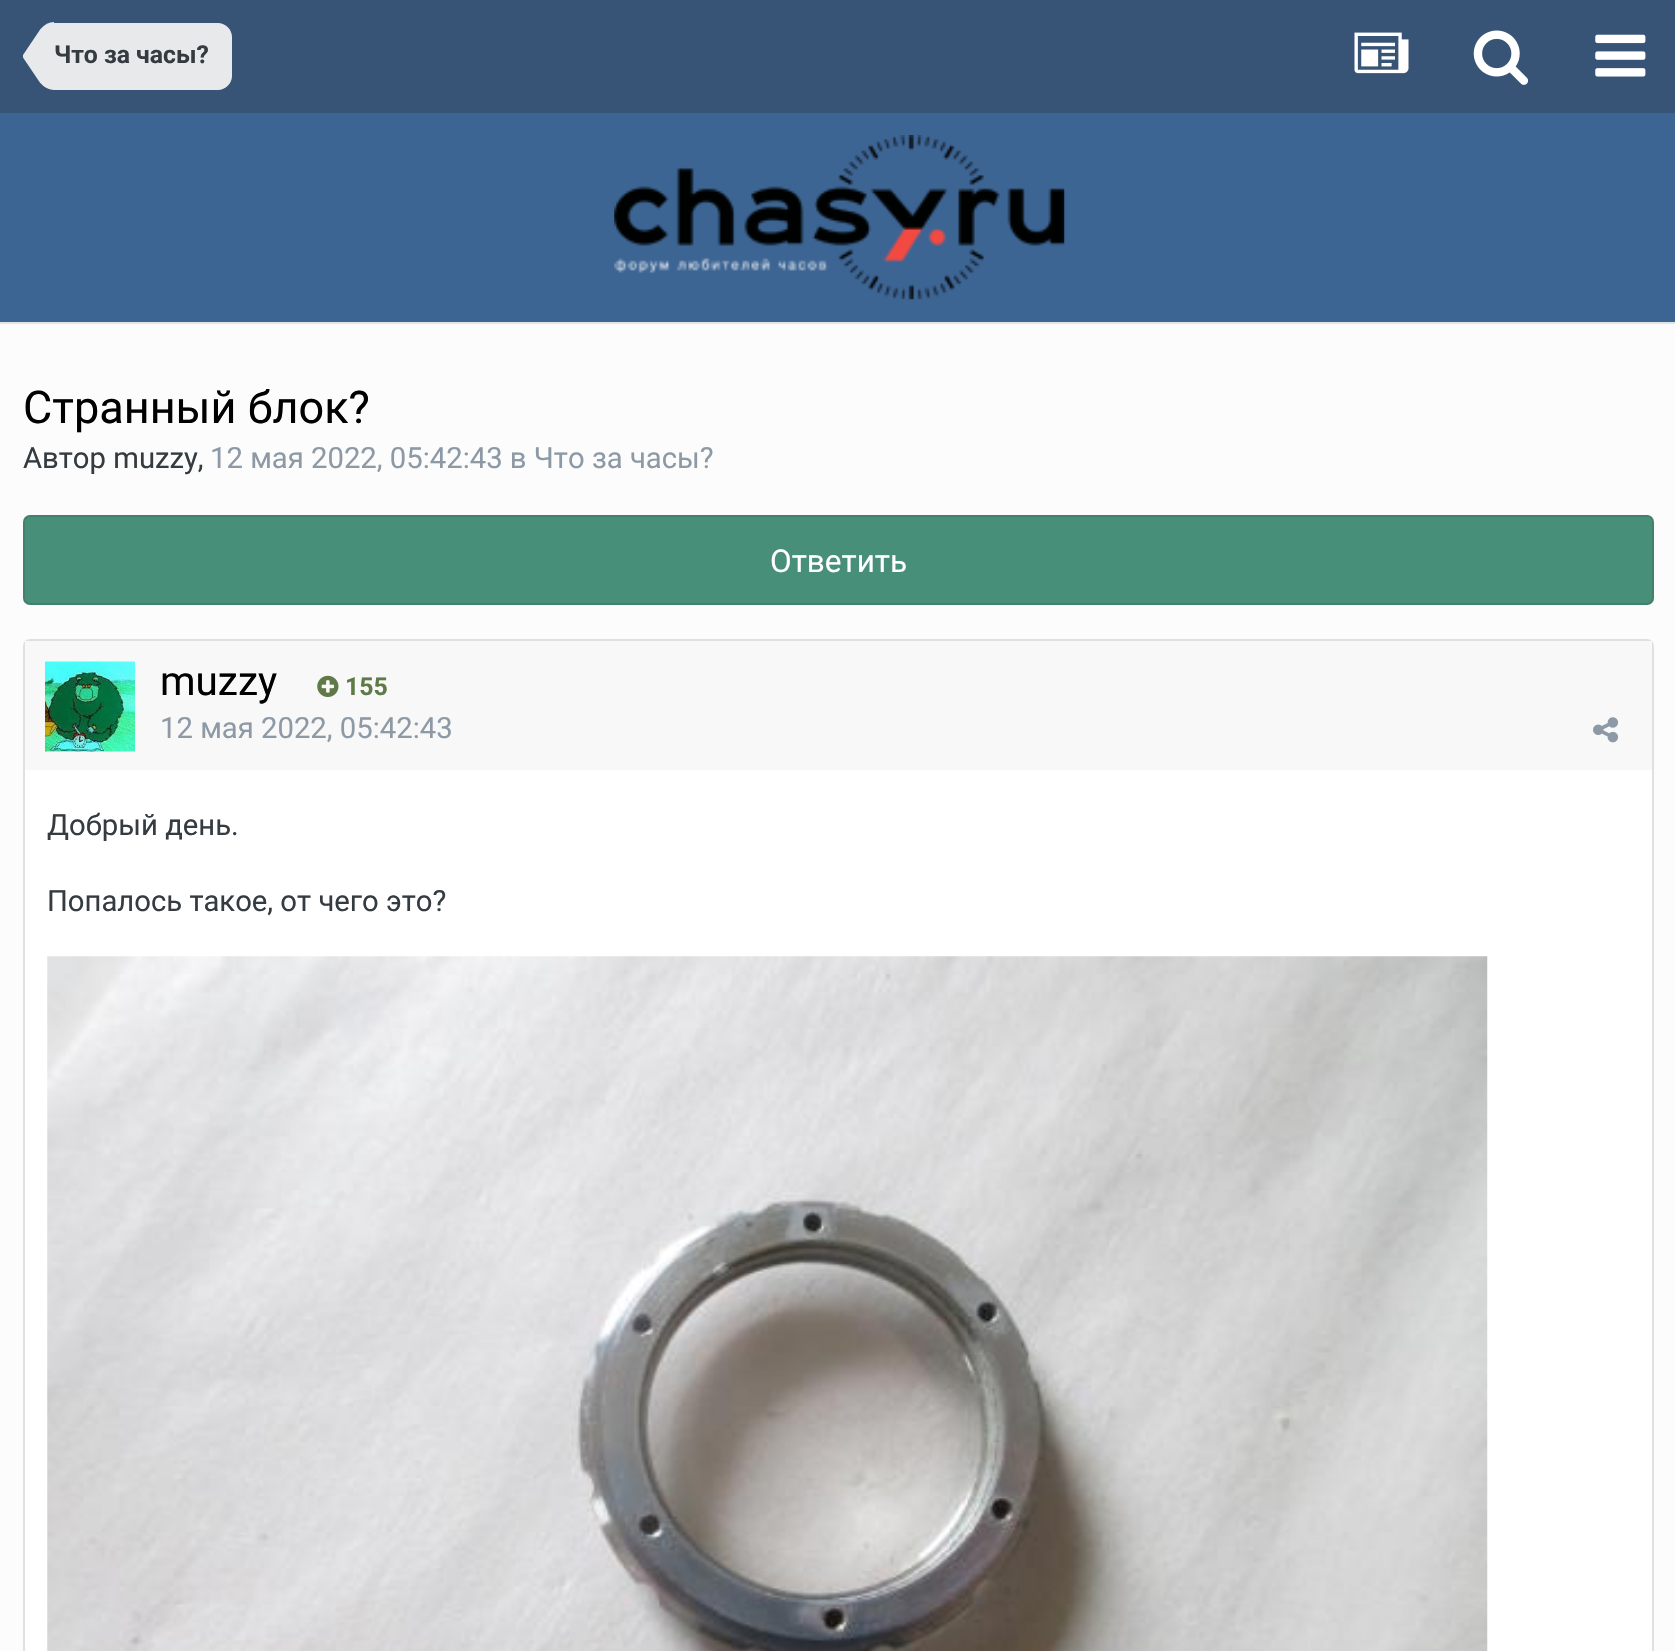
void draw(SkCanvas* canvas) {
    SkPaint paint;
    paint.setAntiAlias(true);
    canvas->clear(0xFFFCFCFC);
    paint.setColor(0xFFE3E3E3);
    canvas->drawRect(SkRect::MakeXYWH(0, 322, 1675, 2), paint);
    paint.setColor(0xFF375476);
    canvas->drawRect(SkRect::MakeXYWH(0, 0, 1675, 113), paint);
    paint.setColor(0xFFE8E9EB);
    canvas->drawPath(SkPathBuilder().moveTo(54, 23).lineTo(218, 23).cubicTo(225.5f, 23, 232, 29.5f, 232, 37).lineTo(232, 76).cubicTo(232, 83.5f, 225.5f, 90, 218, 90).lineTo(54, 90).close().detach(), paint);
    canvas->drawPath(SkPathBuilder().moveTo(23, 56).lineTo(54, 56).lineTo(54, 90).cubicTo(48.5f, 90, 42.5f, 86.5f, 38.5f, 80.5f).lineTo(23, 57.5f).close().detach(), paint);
    canvas->drawPath(SkPathBuilder().moveTo(54, 22).lineTo(54, 56).lineTo(23, 56).lineTo(23, 55).lineTo(40.5f, 29).cubicTo(44.5f, 24.5f, 49, 22, 54, 22).close().detach(), paint);
    SkFont font1(fontMgr->matchFamilyStyle("Roboto", SkFontStyle::Bold()), 24.75f);
    font1.setSubpixel(true);
    paint.setColor(0xFF353C41);
    canvas->drawString("Что за часы?", 54, 63, font1, paint);
    canvas->drawImageRect(SkImages::DeferredFromEncodedData(SkData::MakeFromFileName("img1.png")), SkRect::MakeXYWH(1354, 32, 55, 42), SkSamplingOptions());
    canvas->drawImageRect(SkImages::DeferredFromEncodedData(SkData::MakeFromFileName("img2.png")), SkRect::MakeXYWH(1473, 30, 56, 55), SkSamplingOptions());
    canvas->drawImageRect(SkImages::DeferredFromEncodedData(SkData::MakeFromFileName("img3.png")), SkRect::MakeXYWH(1595, 34, 51, 43), SkSamplingOptions());
    paint.setColor(0xFF3D6594);
    canvas->drawRect(SkRect::MakeXYWH(0, 113, 1675, 209), paint);
    canvas->drawImageRect(SkImages::DeferredFromEncodedData(SkData::MakeFromFileName("img4.png")), SkRect::MakeXYWH(614, 135, 451, 165), SkSamplingOptions());
    SkFont font2(fontMgr->matchFamilyStyle("Roboto", SkFontStyle::Normal()), 45);
    font2.setSubpixel(true);
    paint.setColor(0xFF000000);
    canvas->drawString("Странный блок?", 23, 423, font2, paint);
    SkFont font3(fontMgr->matchFamilyStyle("Roboto", SkFontStyle::Normal()), 29.25f);
    font3.setSubpixel(true);
    paint.setColor(0xFF353C41);
    canvas->drawString("Автор muzzy,", 23, 468, font3, paint);
    paint.setColor(0xFF8D9AA6);
    canvas->drawString("12 мая 2022, 05:42:43 в Что за часы?", 210, 468, font3, paint);
    paint.setColor(0xFF478F79);
    canvas->drawRoundRect(SkRect::MakeXYWH(23, 515, 1631, 90), 7, 7, paint);
    paint.setStyle(SkPaint::kStroke_Style);
    paint.setStrokeWidth(2);
    paint.setColor(0x1A000000);
    canvas->drawRoundRect(SkRect::MakeXYWH(24, 516, 1629, 88), 6, 6, paint);
    SkFont font4(fontMgr->matchFamilyStyle("Roboto", SkFontStyle::Normal()), 31.5f);
    font4.setSubpixel(true);
    paint.setStyle(SkPaint::kFill_Style);
    paint.setColor(0xFFFFFFFF);
    canvas->drawString("Ответить", 770, 572, font4, paint);
    canvas->drawRoundRect(SkRect::MakeXYWH(24, 640, 1629, 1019), 6, 6, paint);
    paint.setStyle(SkPaint::kStroke_Style);
    paint.setColor(0xFFE0E0E0);
    canvas->drawRoundRect(SkRect::MakeXYWH(24, 640, 1629, 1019), 6, 6, paint);
    paint.setStyle(SkPaint::kFill_Style);
    paint.setColor(0xFFF8F8F8);
    canvas->drawRect(SkRect::MakeXYWH(25, 641, 1627, 129), paint);
    paint.setColor(0xFFFFFFFF);
    canvas->drawRoundRect(SkRect::MakeXYWH(45, 662, 90, 90), 5, 5, paint);
    canvas->drawImageRect(SkImages::DeferredFromEncodedData(SkData::MakeFromFileName("img5.png")), SkRect::MakeXYWH(45, 661, 90, 91), SkSamplingOptions());
    SkFont font5(fontMgr->matchFamilyStyle("Roboto", SkFontStyle::Normal()), 40.5f);
    font5.setSubpixel(true);
    paint.setColor(0xFF000000);
    canvas->drawString("muzzy", 160, 695, font5, paint);
    canvas->drawImageRect(SkImages::DeferredFromEncodedData(SkData::MakeFromFileName("img6.png")), SkRect::MakeXYWH(317, 675, 22, 22), SkSamplingOptions());
    paint.setColor(0xFF5F7A47);
    canvas->drawString("155", 345, 695, font1, paint);
    paint.setColor(0xFF8D9AA6);
    canvas->drawString("12 мая 2022, 05:42:43", 160, 738, font3, paint);
    canvas->drawImageRect(SkImages::DeferredFromEncodedData(SkData::MakeFromFileName("img7.png")), SkRect::MakeXYWH(1593, 717, 26, 26), SkSamplingOptions());
    paint.setColor(0xFF353C41);
    canvas->drawString("Добрый день.", 47, 835, font3, paint);
    canvas->drawString("Попалось такое, от чего это?", 47, 911, font3, paint);
    canvas->drawImageRect(SkImages::DeferredFromEncodedData(SkData::MakeFromFileName("img8.png")), SkRect::MakeXYWH(47, 956, 1441, 695), SkSamplingOptions());
}
